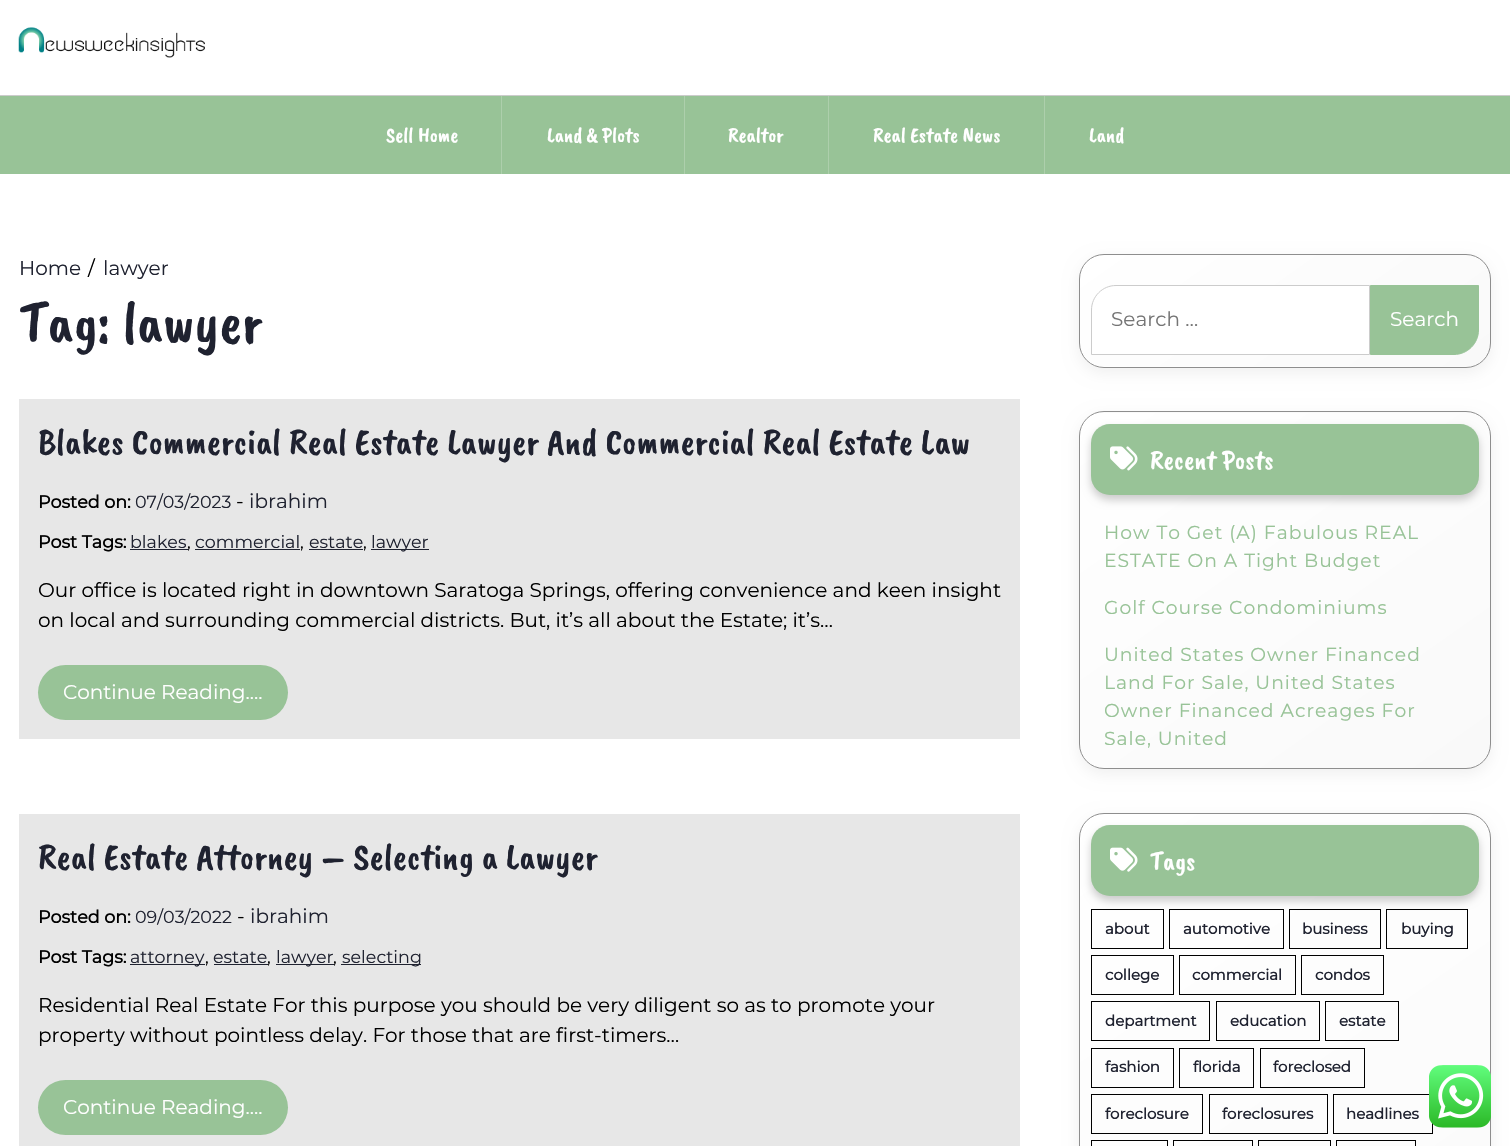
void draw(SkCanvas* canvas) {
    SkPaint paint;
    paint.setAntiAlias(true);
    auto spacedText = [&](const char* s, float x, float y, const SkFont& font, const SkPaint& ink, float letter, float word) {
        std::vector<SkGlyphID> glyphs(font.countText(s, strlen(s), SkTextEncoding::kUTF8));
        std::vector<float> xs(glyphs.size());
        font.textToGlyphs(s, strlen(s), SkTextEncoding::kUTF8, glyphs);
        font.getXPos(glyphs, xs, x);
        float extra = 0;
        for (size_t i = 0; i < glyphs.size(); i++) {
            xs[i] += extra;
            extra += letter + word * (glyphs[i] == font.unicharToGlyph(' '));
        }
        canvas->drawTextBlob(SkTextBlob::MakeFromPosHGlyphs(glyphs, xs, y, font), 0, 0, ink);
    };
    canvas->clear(0xFFFFFFFF);
    paint.setColor(0xFFCCCCCC);
    canvas->drawRect(SkRect::MakeXYWH(0, 95, 1510, 1), paint);
    canvas->drawImageRect(SkImages::DeferredFromEncodedData(SkData::MakeFromFileName("img1.png")), SkRect::MakeXYWH(18, 27, 187, 31), SkSamplingOptions());
    paint.setColor(0xFF98C397);
    canvas->drawRect(SkRect::MakeXYWH(0, 96, 1510, 78), paint);
    paint.setColor(0xFFADCFAC);
    canvas->drawRect(SkRect::MakeXYWH(501, 96, 1, 78), paint);
    SkFont font1(fontMgr->matchFamilyStyle("Caveat Brush", SkFontStyle::Normal()), 21.25f);
    font1.setSubpixel(true);
    paint.setColor(0xFFFFFFFF);
    canvas->drawString("Sell Home", 386, 142, font1, paint);
    paint.setColor(0xFFADCFAC);
    canvas->drawRect(SkRect::MakeXYWH(684, 96, 1, 78), paint);
    paint.setColor(0xFFFFFFFF);
    canvas->drawString("Land & Plots", 547, 142, font1, paint);
    paint.setColor(0xFFADCFAC);
    canvas->drawRect(SkRect::MakeXYWH(828, 96, 1, 78), paint);
    paint.setColor(0xFFFFFFFF);
    canvas->drawString("Realtor", 728, 142, font1, paint);
    paint.setColor(0xFFADCFAC);
    canvas->drawRect(SkRect::MakeXYWH(1044, 96, 1, 78), paint);
    paint.setColor(0xFFFFFFFF);
    canvas->drawString("Real Estate News", 873, 142, font1, paint);
    canvas->drawString("Land", 1089, 142, font1, paint);
    SkFont font2(fontMgr->matchFamilyStyle("Montserrat", SkFontStyle::Normal()), 20);
    font2.setSubpixel(true);
    paint.setColor(0xFF1F2230);
    canvas->drawString("Home", 19, 275, font2, paint);
    paint.setColor(0xFF000000);
    canvas->drawString("/", 88, 275, font2, paint);
    paint.setColor(0xFF1F2230);
    canvas->drawString("lawyer", 103, 275, font2, paint);
    SkFont font3(fontMgr->matchFamilyStyle("Caveat Brush", SkFontStyle::Normal()), 60);
    font3.setSubpixel(true);
    canvas->drawString("Tag: lawyer", 19, 342, font3, paint);
    paint.setColor(0xFFE7E7E7);
    canvas->drawRect(SkRect::MakeXYWH(19, 399, 1001, 340), paint);
    SkFont font4(fontMgr->matchFamilyStyle("Caveat Brush", SkFontStyle::Normal()), 37.5f);
    font4.setSubpixel(true);
    paint.setColor(0xFF1F2230);
    canvas->drawString("Blakes Commercial Real Estate Lawyer And Commercial Real Estate Law", 38, 454, font4, paint);
    SkFont font5(fontMgr->matchFamilyStyle("Montserrat", SkFontStyle::Bold()), 17.5f);
    font5.setSubpixel(true);
    paint.setColor(0xFF000000);
    canvas->drawString("Posted on:", 38, 508, font5, paint);
    SkFont font6(fontMgr->matchFamilyStyle("Montserrat", SkFontStyle::Normal()), 17.5f);
    font6.setSubpixel(true);
    paint.setColor(0xFF1F2230);
    canvas->drawString("07/03/2023", 135, 508, font6, paint);
    paint.setColor(0xFF000000);
    canvas->drawString("-", 236, 508, font2, paint);
    paint.setColor(0xFF1F2230);
    canvas->drawString("ibrahim", 249, 508, font2, paint);
    paint.setColor(0xFF000000);
    canvas->drawString("Post Tags:", 38, 548, font5, paint);
    paint.setColor(0xFF1F2230);
    canvas->drawString("blakes", 130, 548, font6, paint);
    canvas->drawRect(SkRect::MakeXYWH(130, 549, 58, 1), paint);
    paint.setColor(0xFF000000);
    canvas->drawString(",", 187, 548, font6, paint);
    paint.setColor(0xFF1F2230);
    canvas->drawString("commercial", 195, 548, font6, paint);
    canvas->drawRect(SkRect::MakeXYWH(195, 549, 105, 1), paint);
    paint.setColor(0xFF000000);
    canvas->drawString(",", 300, 548, font6, paint);
    paint.setColor(0xFF1F2230);
    canvas->drawString("estate", 309, 548, font6, paint);
    canvas->drawRect(SkRect::MakeXYWH(309, 549, 54, 1), paint);
    paint.setColor(0xFF000000);
    canvas->drawString(",", 363, 548, font6, paint);
    paint.setColor(0xFF1F2230);
    canvas->drawRect(SkRect::MakeXYWH(371, 549, 58, 1), paint);
    canvas->drawString("lawyer", 371, 548, font6, paint);
    paint.setColor(0xFF000000);
    canvas->drawString("Our office is located right in downtown Saratoga Springs, offering convenience and keen insight", 38, 597, font2, paint);
    canvas->drawString("on local and surrounding commercial districts. But, it’s all about the Estate; it’s…", 38, 627, font2, paint);
    paint.setColor(0xFF98C397);
    canvas->drawRoundRect(SkRect::MakeXYWH(38, 665, 250, 55), 27.5f, 27.5f, paint);
    paint.setColor(0xFFFFFFFF);
    canvas->drawString("Continue Reading....", 63, 699, font2, paint);
    paint.setColor(0xFFE7E7E7);
    canvas->drawRect(SkRect::MakeXYWH(19, 814, 1001, 332), paint);
    paint.setColor(0xFF1F2230);
    canvas->drawString("Real Estate Attorney – Selecting a Lawyer", 38, 869, font4, paint);
    paint.setColor(0xFF000000);
    canvas->drawString("Posted on:", 38, 923, font5, paint);
    paint.setColor(0xFF1F2230);
    canvas->drawString("09/03/2022", 135, 923, font6, paint);
    paint.setColor(0xFF000000);
    canvas->drawString("-", 237, 923, font2, paint);
    paint.setColor(0xFF1F2230);
    canvas->drawString("ibrahim", 250, 923, font2, paint);
    paint.setColor(0xFF000000);
    canvas->drawString("Post Tags:", 38, 963, font5, paint);
    paint.setColor(0xFF1F2230);
    canvas->drawRect(SkRect::MakeXYWH(130, 964, 75, 1), paint);
    canvas->drawString("attorney", 130, 963, font6, paint);
    paint.setColor(0xFF000000);
    canvas->drawString(",", 205, 963, font6, paint);
    paint.setColor(0xFF1F2230);
    canvas->drawString("estate", 213, 963, font6, paint);
    canvas->drawRect(SkRect::MakeXYWH(214, 964, 54, 1), paint);
    paint.setColor(0xFF000000);
    canvas->drawString(",", 267, 963, font6, paint);
    paint.setColor(0xFF1F2230);
    canvas->drawRect(SkRect::MakeXYWH(276, 964, 58, 1), paint);
    canvas->drawString("lawyer", 276, 963, font6, paint);
    paint.setColor(0xFF000000);
    canvas->drawString(",", 333, 963, font6, paint);
    paint.setColor(0xFF1F2230);
    canvas->drawRect(SkRect::MakeXYWH(341, 964, 80, 1), paint);
    canvas->drawString("selecting", 342, 963, font6, paint);
    paint.setColor(0xFF000000);
    canvas->drawString("Residential Real Estate For this purpose you should be very diligent so as to promote your", 38, 1012, font2, paint);
    canvas->drawString("property without pointless delay. For those that are first-timers…", 38, 1042, font2, paint);
    paint.setColor(0xFF98C397);
    canvas->drawRoundRect(SkRect::MakeXYWH(38, 1080, 250, 55), 27.5f, 27.5f, paint);
    paint.setColor(0xFFFFFFFF);
    canvas->drawString("Continue Reading....", 63, 1114, font2, paint);
    paint.setColor(0x0F000000);
    paint.setMaskFilter(SkMaskFilter::MakeBlur(kNormal_SkBlurStyle, 7.5f));
    canvas->drawRoundRect(SkRect::MakeXYWH(1079, 259, 412, 114), 25, 25, paint);
    paint.setMaskFilter(nullptr);
    canvas->save();
    canvas->clipPath(SkPathBuilder().moveTo(1104, 254).lineTo(1466, 254).cubicTo(1480, 254, 1491, 265, 1491, 279).lineTo(1491, 343).cubicTo(1491, 357, 1480, 368, 1466, 368).lineTo(1104, 368).cubicTo(1090, 368, 1079, 357, 1079, 343).lineTo(1079, 279).cubicTo(1079, 265, 1090, 254, 1104, 254).close().detach(), true);
    {
        const SkColor colors[] = {0xFFFFFFFF, 0xFFF9F9F9};
        const float stops[] = {0, 1};
        const SkPoint ends[] = {{1191, 177}, {1379, 444}};
        paint.setShader(SkGradientShader::MakeLinear(ends, colors, stops, 2, SkTileMode::kClamp));
        paint.setAlpha(255);
    }
    canvas->drawRect(SkRect::MakeXYWH(1080, 255, 410, 111), paint);
    {
        const SkColor colors[] = {0xFFFFFFFF, 0xFFF9F9F9};
        const float stops[] = {0, 1};
        const SkPoint ends[] = {{1191, 288}, {1379, 556}};
        paint.setShader(SkGradientShader::MakeLinear(ends, colors, stops, 2, SkTileMode::kClamp));
        paint.setAlpha(255);
    }
    canvas->drawRect(SkRect::MakeXYWH(1094, 366, 382, 2), paint);
    canvas->restore();
    paint.setStyle(SkPaint::kStroke_Style);
    paint.setStrokeWidth(1);
    paint.setShader(nullptr);
    paint.setColor(0xFF8E8E8E);
    canvas->drawRoundRect(SkRect::MakeXYWH(1079.5f, 254.5f, 411, 113), 24.5f, 24.5f, paint);
    paint.setStyle(SkPaint::kFill_Style);
    paint.setColor(0xFFFFFFFF);
    canvas->drawPath(SkPathBuilder().moveTo(1116, 285.5f).lineTo(1369.5f, 285.5f).lineTo(1369.5f, 354.5f).lineTo(1091.5f, 354.5f).lineTo(1091.5f, 310).cubicTo(1091.5f, 296.5f, 1102.5f, 285.5f, 1116, 285.5f).close().detach(), paint);
    paint.setStyle(SkPaint::kStroke_Style);
    paint.setColor(0xFFCCCCCC);
    canvas->drawPath(SkPathBuilder().moveTo(1116, 285.5f).lineTo(1369.5f, 285.5f).lineTo(1369.5f, 354.5f).lineTo(1091.5f, 354.5f).lineTo(1091.5f, 310).cubicTo(1091.5f, 296.5f, 1102.5f, 285.5f, 1116, 285.5f).close().detach(), paint);
    paint.setStyle(SkPaint::kFill_Style);
    paint.setColor(0xFF757575);
    canvas->drawString("Search …", 1111, 326, font2, paint);
    paint.setColor(0xFF98C397);
    canvas->drawPath(SkPathBuilder().moveTo(1370.5f, 285.5f).lineTo(1478.5f, 285.5f).lineTo(1478.5f, 330).cubicTo(1478.5f, 343.5f, 1467.5f, 354.5f, 1454, 354.5f).lineTo(1370.5f, 354.5f).close().detach(), paint);
    paint.setStyle(SkPaint::kStroke_Style);
    canvas->drawPath(SkPathBuilder().moveTo(1370.5f, 285.5f).lineTo(1478.5f, 285.5f).lineTo(1478.5f, 330).cubicTo(1478.5f, 343.5f, 1467.5f, 354.5f, 1454, 354.5f).lineTo(1370.5f, 354.5f).close().detach(), paint);
    paint.setStyle(SkPaint::kFill_Style);
    paint.setColor(0xFFFFFFFF);
    canvas->drawString("Search", 1390, 326, font2, paint);
    paint.setColor(0x0F000000);
    paint.setMaskFilter(SkMaskFilter::MakeBlur(kNormal_SkBlurStyle, 7.5f));
    canvas->drawRoundRect(SkRect::MakeXYWH(1079, 416, 412, 358), 25, 25, paint);
    paint.setMaskFilter(nullptr);
    canvas->save();
    canvas->clipPath(SkPathBuilder().moveTo(1104, 411).lineTo(1466, 411).cubicTo(1480, 411, 1491, 422, 1491, 436).lineTo(1491, 744).cubicTo(1491, 758, 1480, 769, 1466, 769).lineTo(1104, 769).cubicTo(1090, 769, 1079, 758, 1079, 744).lineTo(1079, 436).cubicTo(1079, 422, 1090, 411, 1104, 411).close().detach(), true);
    {
        const SkColor colors[] = {0xFFFFFFFF, 0xFFF9F9F9};
        const float stops[] = {0, 1};
        const SkPoint ends[] = {{1134, 375}, {1436, 805}};
        paint.setShader(SkGradientShader::MakeLinear(ends, colors, stops, 2, SkTileMode::kClamp));
        paint.setAlpha(255);
    }
    canvas->drawRect(SkRect::MakeXYWH(1080, 413, 410, 355), paint);
    canvas->restore();
    paint.setStyle(SkPaint::kStroke_Style);
    paint.setShader(nullptr);
    paint.setColor(0xFF8E8E8E);
    canvas->drawRoundRect(SkRect::MakeXYWH(1079.5f, 411.5f, 411, 357), 24.5f, 24.5f, paint);
    paint.setStyle(SkPaint::kFill_Style);
    paint.setColor(0x33000000);
    paint.setMaskFilter(SkMaskFilter::MakeBlur(kNormal_SkBlurStyle, 4));
    canvas->drawRoundRect(SkRect::MakeXYWH(1091, 429, 388, 71), 19, 19, paint);
    paint.setMaskFilter(nullptr);
    paint.setColor(0xFF98C397);
    canvas->drawRoundRect(SkRect::MakeXYWH(1091, 424, 388, 71), 19, 19, paint);
    canvas->drawImageRect(SkImages::DeferredFromEncodedData(SkData::MakeFromFileName("img2.png")), SkRect::MakeXYWH(1110, 446, 28, 25), SkSamplingOptions());
    SkFont font7(fontMgr->matchFamilyStyle("Caveat Brush", SkFontStyle::Normal()), 27.5f);
    font7.setSubpixel(true);
    paint.setColor(0xFFFFFFFF);
    canvas->drawString("Recent Posts", 1150, 469, font7, paint);
    SkFont font8(fontMgr->matchFamilyStyle("Montserrat", SkFontStyle::Normal()), 18.75f);
    font8.setSubpixel(true);
    paint.setColor(0xFF98C397);
    spacedText("How To Get (A) Fabulous REAL", 1104, 539, font8, paint, 1, 0);
    spacedText("ESTATE On A Tight Budget", 1104, 567, font8, paint, 1, 0);
    spacedText("Golf Course Condominiums", 1104, 614, font8, paint, 1, 0);
    spacedText("United States Owner Financed", 1104, 661, font8, paint, 1, 0);
    spacedText("Land For Sale, United States", 1104, 689, font8, paint, 1, 0);
    spacedText("Owner Financed Acreages For", 1104, 717, font8, paint, 1, 0);
    spacedText("Sale, United", 1104, 745, font8, paint, 1, 0);
    paint.setColor(0x0F000000);
    paint.setMaskFilter(SkMaskFilter::MakeBlur(kNormal_SkBlurStyle, 7.5f));
    canvas->drawRoundRect(SkRect::MakeXYWH(1079, 818, 412, 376), 25, 25, paint);
    paint.setMaskFilter(nullptr);
    canvas->save();
    canvas->clipPath(SkPathBuilder().moveTo(1104, 813).lineTo(1466, 813).cubicTo(1480, 813, 1491, 824, 1491, 838).lineTo(1491, 1498).cubicTo(1491, 1512, 1480, 1523, 1466, 1523).lineTo(1104, 1523).cubicTo(1090, 1523, 1079, 1512, 1079, 1498).lineTo(1079, 838).cubicTo(1079, 824, 1090, 813, 1104, 813).close().detach(), true);
    {
        const SkColor colors[] = {0xFFFFFFFF, 0xFFF9F9F9};
        const float stops[] = {0, 1};
        const SkPoint ends[] = {{1051, 834}, {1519, 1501}};
        paint.setShader(SkGradientShader::MakeLinear(ends, colors, stops, 2, SkTileMode::kClamp));
        paint.setAlpha(255);
    }
    canvas->drawRect(SkRect::MakeXYWH(1080, 814, 410, 332), paint);
    canvas->restore();
    paint.setStyle(SkPaint::kStroke_Style);
    paint.setShader(nullptr);
    paint.setColor(0xFF8E8E8E);
    canvas->drawRoundRect(SkRect::MakeXYWH(1079.5f, 813.5f, 411, 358), 24.5f, 24.5f, paint);
    paint.setStyle(SkPaint::kFill_Style);
    paint.setColor(0x33000000);
    paint.setMaskFilter(SkMaskFilter::MakeBlur(kNormal_SkBlurStyle, 4));
    canvas->drawRoundRect(SkRect::MakeXYWH(1091, 830, 388, 71), 19, 19, paint);
    paint.setMaskFilter(nullptr);
    paint.setColor(0xFF98C397);
    canvas->drawRoundRect(SkRect::MakeXYWH(1091, 825, 388, 71), 19, 19, paint);
    canvas->drawImageRect(SkImages::DeferredFromEncodedData(SkData::MakeFromFileName("img3.png")), SkRect::MakeXYWH(1110, 847, 28, 25), SkSamplingOptions());
    paint.setColor(0xFFFFFFFF);
    canvas->drawString("Tags", 1150, 870, font7, paint);
    paint.setStyle(SkPaint::kStroke_Style);
    paint.setColor(0xFF000000);
    canvas->drawRect(SkRect::MakeXYWH(1091.5f, 909.5f, 72, 39), paint);
    SkFont font9(fontMgr->matchFamilyStyle("Montserrat", SkFontStyle::Bold()), 15);
    font9.setSubpixel(true);
    paint.setStyle(SkPaint::kFill_Style);
    paint.setColor(0xFF1F2230);
    canvas->drawString("about", 1105, 934, font9, paint);
    paint.setStyle(SkPaint::kStroke_Style);
    paint.setColor(0xFF000000);
    canvas->drawRect(SkRect::MakeXYWH(1169.5f, 909.5f, 114, 39), paint);
    paint.setStyle(SkPaint::kFill_Style);
    paint.setColor(0xFF1F2230);
    canvas->drawString("automotive", 1183, 934, font9, paint);
    paint.setStyle(SkPaint::kStroke_Style);
    paint.setColor(0xFF000000);
    canvas->drawRect(SkRect::MakeXYWH(1289.5f, 909.5f, 91, 39), paint);
    paint.setStyle(SkPaint::kFill_Style);
    paint.setColor(0xFF1F2230);
    canvas->drawString("business", 1302, 934, font9, paint);
    paint.setStyle(SkPaint::kStroke_Style);
    paint.setColor(0xFF000000);
    canvas->drawRect(SkRect::MakeXYWH(1386.5f, 909.5f, 81, 39), paint);
    paint.setStyle(SkPaint::kFill_Style);
    paint.setColor(0xFF1F2230);
    canvas->drawString("buying", 1401, 934, font9, paint);
    paint.setStyle(SkPaint::kStroke_Style);
    paint.setColor(0xFF000000);
    canvas->drawRect(SkRect::MakeXYWH(1091.5f, 955.5f, 82, 39), paint);
    paint.setStyle(SkPaint::kFill_Style);
    paint.setColor(0xFF1F2230);
    canvas->drawString("college", 1105, 980, font9, paint);
    paint.setStyle(SkPaint::kStroke_Style);
    paint.setColor(0xFF000000);
    canvas->drawRect(SkRect::MakeXYWH(1179.5f, 955.5f, 116, 39), paint);
    paint.setStyle(SkPaint::kFill_Style);
    paint.setColor(0xFF1F2230);
    canvas->drawString("commercial", 1192, 980, font9, paint);
    paint.setStyle(SkPaint::kStroke_Style);
    paint.setColor(0xFF000000);
    canvas->drawRect(SkRect::MakeXYWH(1301.5f, 955.5f, 82, 39), paint);
    paint.setStyle(SkPaint::kFill_Style);
    paint.setColor(0xFF1F2230);
    canvas->drawString("condos", 1315, 980, font9, paint);
    paint.setStyle(SkPaint::kStroke_Style);
    paint.setColor(0xFF000000);
    canvas->drawRect(SkRect::MakeXYWH(1091.5f, 1001.5f, 118, 39), paint);
    paint.setStyle(SkPaint::kFill_Style);
    paint.setColor(0xFF1F2230);
    canvas->drawString("department", 1105, 1026, font9, paint);
    paint.setStyle(SkPaint::kStroke_Style);
    paint.setColor(0xFF000000);
    canvas->drawRect(SkRect::MakeXYWH(1216.5f, 1001.5f, 103, 39), paint);
    paint.setStyle(SkPaint::kFill_Style);
    paint.setColor(0xFF1F2230);
    canvas->drawString("education", 1230, 1026, font9, paint);
    paint.setStyle(SkPaint::kStroke_Style);
    paint.setColor(0xFF000000);
    canvas->drawRect(SkRect::MakeXYWH(1325.5f, 1001.5f, 73, 39), paint);
    paint.setStyle(SkPaint::kFill_Style);
    paint.setColor(0xFF1F2230);
    canvas->drawString("estate", 1339, 1026, font9, paint);
    paint.setStyle(SkPaint::kStroke_Style);
    paint.setColor(0xFF000000);
    canvas->drawRect(SkRect::MakeXYWH(1091.5f, 1048.5f, 82, 39), paint);
    paint.setStyle(SkPaint::kFill_Style);
    paint.setColor(0xFF1F2230);
    canvas->drawString("fashion", 1105, 1072, font9, paint);
    paint.setStyle(SkPaint::kStroke_Style);
    paint.setColor(0xFF000000);
    canvas->drawRect(SkRect::MakeXYWH(1179.5f, 1048.5f, 74, 39), paint);
    paint.setStyle(SkPaint::kFill_Style);
    paint.setColor(0xFF1F2230);
    canvas->drawString("florida", 1193, 1072, font9, paint);
    paint.setStyle(SkPaint::kStroke_Style);
    paint.setColor(0xFF000000);
    canvas->drawRect(SkRect::MakeXYWH(1260.5f, 1048.5f, 104, 39), paint);
    paint.setStyle(SkPaint::kFill_Style);
    paint.setColor(0xFF1F2230);
    canvas->drawString("foreclosed", 1273, 1072, font9, paint);
    paint.setStyle(SkPaint::kStroke_Style);
    paint.setColor(0xFF000000);
    canvas->drawRect(SkRect::MakeXYWH(1091.5f, 1094.5f, 111, 39), paint);
    paint.setStyle(SkPaint::kFill_Style);
    paint.setColor(0xFF1F2230);
    canvas->drawString("foreclosure", 1105, 1119, font9, paint);
    paint.setStyle(SkPaint::kStroke_Style);
    paint.setColor(0xFF000000);
    canvas->drawRect(SkRect::MakeXYWH(1209.5f, 1094.5f, 118, 39), paint);
    paint.setStyle(SkPaint::kFill_Style);
    paint.setColor(0xFF1F2230);
    canvas->drawString("foreclosures", 1222, 1119, font9, paint);
    paint.setStyle(SkPaint::kStroke_Style);
    paint.setColor(0xFF000000);
    canvas->drawRect(SkRect::MakeXYWH(1333.5f, 1094.5f, 99, 39), paint);
    paint.setStyle(SkPaint::kFill_Style);
    paint.setColor(0xFF1F2230);
    canvas->drawString("headlines", 1346, 1119, font9, paint);
    paint.setStyle(SkPaint::kStroke_Style);
    paint.setColor(0xFF000000);
    canvas->drawRect(SkRect::MakeXYWH(1091.5f, 1140.5f, 76, 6), paint);
    canvas->drawRect(SkRect::MakeXYWH(1173.5f, 1140.5f, 79, 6), paint);
    canvas->drawRect(SkRect::MakeXYWH(1258.5f, 1140.5f, 72, 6), paint);
    canvas->drawRect(SkRect::MakeXYWH(1336.5f, 1140.5f, 79, 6), paint);
    canvas->drawImageRect(SkImages::DeferredFromEncodedData(SkData::MakeFromFileName("img4.png")), SkRect::MakeXYWH(1429, 1065, 62, 63), SkSamplingOptions());
}
